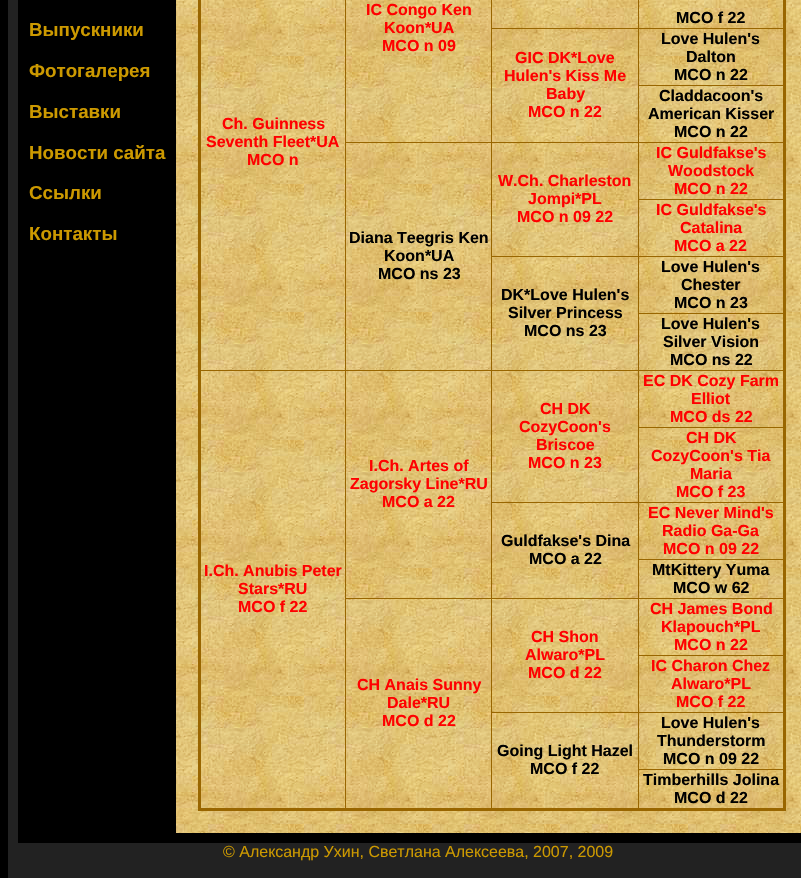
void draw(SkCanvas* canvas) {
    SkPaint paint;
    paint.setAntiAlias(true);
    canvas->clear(0xFF000000);
    paint.setColor(0xFF222222);
    canvas->drawRect(SkRect::MakeXYWH(8, 0, 793, 878), paint);
    paint.setColor(0xFF000000);
    canvas->drawRect(SkRect::MakeXYWH(18, 0, 783, 843), paint);
    SkFont font1(fontMgr->matchFamilyStyle("Liberation Sans", SkFontStyle::Bold()), 18.75f);
    font1.setSubpixel(true);
    paint.setColor(0xFFCC9900);
    canvas->drawString("Выпускники", 29, 36, font1, paint);
    canvas->drawString("Фотогалерея", 29, 77, font1, paint);
    canvas->drawString("Выставки", 29, 118, font1, paint);
    canvas->drawString("Новости сайта", 29, 159, font1, paint);
    canvas->drawString("Ссылки", 29, 199, font1, paint);
    canvas->drawString("Контакты", 29, 240, font1, paint);
    canvas->drawImageRect(SkImages::DeferredFromEncodedData(SkData::MakeFromFileName("img1.png")), SkRect::MakeXYWH(176, 0, 625, 833), SkSamplingOptions());
    paint.setColor(0xFF996600);
    canvas->drawRect(SkRect::MakeXYWH(638, 28, 147, 1), paint);
    canvas->drawRect(SkRect::MakeXYWH(638, 85, 147, 1), paint);
    canvas->drawRect(SkRect::MakeXYWH(638, 142, 147, 1), paint);
    canvas->drawRect(SkRect::MakeXYWH(638, 199, 147, 1), paint);
    canvas->drawRect(SkRect::MakeXYWH(638, 256, 147, 1), paint);
    canvas->drawRect(SkRect::MakeXYWH(638, 313, 147, 1), paint);
    canvas->drawRect(SkRect::MakeXYWH(638, 370, 147, 1), paint);
    canvas->drawRect(SkRect::MakeXYWH(638, 427, 147, 1), paint);
    canvas->drawRect(SkRect::MakeXYWH(638, 502, 147, 1), paint);
    canvas->drawRect(SkRect::MakeXYWH(638, 559, 147, 1), paint);
    canvas->drawRect(SkRect::MakeXYWH(638, 598, 147, 1), paint);
    canvas->drawRect(SkRect::MakeXYWH(638, 655, 147, 1), paint);
    canvas->drawRect(SkRect::MakeXYWH(638, 712, 147, 1), paint);
    canvas->drawRect(SkRect::MakeXYWH(638, 769, 147, 1), paint);
    canvas->drawRect(SkRect::MakeXYWH(783, 0, 3, 811), paint);
    canvas->drawRect(SkRect::MakeXYWH(638, 769, 1, 41), paint);
    canvas->drawRect(SkRect::MakeXYWH(638, 712, 1, 58), paint);
    canvas->drawRect(SkRect::MakeXYWH(491, 712, 148, 1), paint);
    canvas->drawRect(SkRect::MakeXYWH(638, 655, 1, 58), paint);
    canvas->drawRect(SkRect::MakeXYWH(638, 598, 1, 58), paint);
    canvas->drawRect(SkRect::MakeXYWH(491, 598, 148, 1), paint);
    canvas->drawRect(SkRect::MakeXYWH(491, 712, 1, 98), paint);
    canvas->drawRect(SkRect::MakeXYWH(491, 598, 1, 115), paint);
    canvas->drawRect(SkRect::MakeXYWH(345, 598, 147, 1), paint);
    canvas->drawRect(SkRect::MakeXYWH(345, 598, 1, 212), paint);
    canvas->drawRect(SkRect::MakeXYWH(198, 808, 588, 3), paint);
    canvas->drawRect(SkRect::MakeXYWH(638, 559, 1, 40), paint);
    canvas->drawRect(SkRect::MakeXYWH(638, 502, 1, 58), paint);
    canvas->drawRect(SkRect::MakeXYWH(491, 502, 148, 1), paint);
    canvas->drawRect(SkRect::MakeXYWH(638, 427, 1, 76), paint);
    canvas->drawRect(SkRect::MakeXYWH(638, 370, 1, 58), paint);
    canvas->drawRect(SkRect::MakeXYWH(491, 370, 148, 1), paint);
    canvas->drawRect(SkRect::MakeXYWH(491, 502, 1, 97), paint);
    canvas->drawRect(SkRect::MakeXYWH(491, 370, 1, 133), paint);
    canvas->drawRect(SkRect::MakeXYWH(345, 370, 147, 1), paint);
    canvas->drawRect(SkRect::MakeXYWH(345, 370, 1, 229), paint);
    canvas->drawRect(SkRect::MakeXYWH(199, 370, 147, 1), paint);
    canvas->drawRect(SkRect::MakeXYWH(198, 0, 3, 811), paint);
    SkFont font2(fontMgr->matchFamilyStyle("Liberation Sans", SkFontStyle::Bold()), 16);
    font2.setSubpixel(true);
    paint.setColor(0xFFFF0000);
    canvas->drawString("IC Congo Ken", 366, 15, font2, paint);
    canvas->drawString("Koon*UA", 384, 33, font2, paint);
    canvas->drawString("MCO n 09", 382, 51, font2, paint);
    canvas->drawString("Ch. Guinness", 222, 129, font2, paint);
    canvas->drawString("Seventh Fleet*UA", 206, 147, font2, paint);
    canvas->drawString("MCO n", 247, 165, font2, paint);
    paint.setColor(0xFF996600);
    canvas->drawRect(SkRect::MakeXYWH(638, 313, 1, 58), paint);
    canvas->drawRect(SkRect::MakeXYWH(638, 256, 1, 58), paint);
    canvas->drawRect(SkRect::MakeXYWH(491, 256, 148, 1), paint);
    canvas->drawRect(SkRect::MakeXYWH(638, 199, 1, 58), paint);
    canvas->drawRect(SkRect::MakeXYWH(638, 142, 1, 58), paint);
    canvas->drawRect(SkRect::MakeXYWH(491, 142, 148, 1), paint);
    canvas->drawRect(SkRect::MakeXYWH(638, 85, 1, 58), paint);
    canvas->drawRect(SkRect::MakeXYWH(638, 28, 1, 58), paint);
    canvas->drawRect(SkRect::MakeXYWH(491, 28, 148, 1), paint);
    canvas->drawRect(SkRect::MakeXYWH(638, 0, 1, 29), paint);
    paint.setColor(0xFF000000);
    canvas->drawString("MCO f 22", 676, 23, font2, paint);
    paint.setColor(0xFF996600);
    canvas->drawRect(SkRect::MakeXYWH(491, 256, 1, 115), paint);
    canvas->drawRect(SkRect::MakeXYWH(491, 142, 1, 115), paint);
    canvas->drawRect(SkRect::MakeXYWH(345, 142, 147, 1), paint);
    canvas->drawRect(SkRect::MakeXYWH(491, 0, 1, 143), paint);
    paint.setColor(0xFFFF0000);
    canvas->drawString("GIC DK*Love", 515, 63, font2, paint);
    canvas->drawString("Hulen's Kiss Me", 504, 81, font2, paint);
    canvas->drawString("Baby", 546, 99, font2, paint);
    canvas->drawString("MCO n 22", 528, 117, font2, paint);
    paint.setColor(0xFF000000);
    canvas->drawString("Love Hulen's", 661, 44, font2, paint);
    canvas->drawString("Dalton", 686, 62, font2, paint);
    canvas->drawString("MCO n 22", 674, 80, font2, paint);
    canvas->drawString("Claddacoon's", 659, 101, font2, paint);
    canvas->drawString("American Kisser", 648, 119, font2, paint);
    canvas->drawString("MCO n 22", 674, 137, font2, paint);
    paint.setColor(0xFFFF0000);
    canvas->drawString("W.Ch. Charleston", 498, 186, font2, paint);
    canvas->drawString("Jompi*PL", 528, 204, font2, paint);
    canvas->drawString("MCO n 09 22", 517, 222, font2, paint);
    canvas->drawString("IC Guldfakse's", 656, 158, font2, paint);
    canvas->drawString("Woodstock", 668, 176, font2, paint);
    canvas->drawString("MCO n 22", 674, 194, font2, paint);
    paint.setColor(0xFF996600);
    canvas->drawRect(SkRect::MakeXYWH(345, 0, 1, 371), paint);
    paint.setColor(0xFF000000);
    canvas->drawString("Diana Teegris Ken", 349, 243, font2, paint);
    canvas->drawString("Koon*UA", 384, 261, font2, paint);
    canvas->drawString("MCO ns 23", 378, 279, font2, paint);
    paint.setColor(0xFFFF0000);
    canvas->drawString("IC Guldfakse's", 656, 215, font2, paint);
    canvas->drawString("Catalina", 680, 233, font2, paint);
    canvas->drawString("MCO a 22", 674, 251, font2, paint);
    paint.setColor(0xFF000000);
    canvas->drawString("DK*Love Hulen's", 501, 300, font2, paint);
    canvas->drawString("Silver Princess", 508, 318, font2, paint);
    canvas->drawString("MCO ns 23", 524, 336, font2, paint);
    canvas->drawString("Love Hulen's", 661, 272, font2, paint);
    canvas->drawString("Chester", 681, 290, font2, paint);
    canvas->drawString("MCO n 23", 674, 308, font2, paint);
    canvas->drawString("Love Hulen's", 661, 329, font2, paint);
    canvas->drawString("Silver Vision", 663, 347, font2, paint);
    canvas->drawString("MCO ns 22", 670, 365, font2, paint);
    paint.setColor(0xFFFF0000);
    canvas->drawString("CH DK", 540, 414, font2, paint);
    canvas->drawString("CozyCoon's", 519, 432, font2, paint);
    canvas->drawString("Briscoe", 536, 450, font2, paint);
    canvas->drawString("MCO n 23", 528, 468, font2, paint);
    canvas->drawString("EC DK Cozy Farm", 643, 386, font2, paint);
    canvas->drawString("Elliot", 691, 404, font2, paint);
    canvas->drawString("MCO ds 22", 670, 422, font2, paint);
    canvas->drawString("I.Ch. Artes of", 369, 471, font2, paint);
    canvas->drawString("Zagorsky Line*RU", 350, 489, font2, paint);
    canvas->drawString("MCO a 22", 382, 507, font2, paint);
    canvas->drawString("I.Ch. Anubis Peter", 204, 576, font2, paint);
    canvas->drawString("Stars*RU", 238, 594, font2, paint);
    canvas->drawString("MCO f 22", 238, 612, font2, paint);
    canvas->drawString("CH DK", 686, 443, font2, paint);
    canvas->drawString("CozyCoon's Tia", 651, 461, font2, paint);
    canvas->drawString("Maria", 690, 479, font2, paint);
    canvas->drawString("MCO f 23", 676, 497, font2, paint);
    paint.setColor(0xFF000000);
    canvas->drawString("Guldfakse's Dina", 501, 546, font2, paint);
    canvas->drawString("MCO a 22", 529, 564, font2, paint);
    paint.setColor(0xFFFF0000);
    canvas->drawString("EC Never Mind's", 648, 518, font2, paint);
    canvas->drawString("Radio Ga-Ga", 662, 536, font2, paint);
    canvas->drawString("MCO n 09 22", 663, 554, font2, paint);
    paint.setColor(0xFF000000);
    canvas->drawString("MtKittery Yuma", 652, 575, font2, paint);
    canvas->drawString("MCO w 62", 673, 593, font2, paint);
    paint.setColor(0xFFFF0000);
    canvas->drawString("CH Shon", 531, 642, font2, paint);
    canvas->drawString("Alwaro*PL", 525, 660, font2, paint);
    canvas->drawString("MCO d 22", 528, 678, font2, paint);
    canvas->drawString("CH James Bond", 650, 614, font2, paint);
    canvas->drawString("Klapouch*PL", 661, 632, font2, paint);
    canvas->drawString("MCO n 22", 674, 650, font2, paint);
    canvas->drawString("CH Anais Sunny", 357, 690, font2, paint);
    canvas->drawString("Dale*RU", 387, 708, font2, paint);
    canvas->drawString("MCO d 22", 382, 726, font2, paint);
    canvas->drawString("IC Charon Chez", 651, 671, font2, paint);
    canvas->drawString("Alwaro*PL", 671, 689, font2, paint);
    canvas->drawString("MCO f 22", 676, 707, font2, paint);
    paint.setColor(0xFF000000);
    canvas->drawString("Going Light Hazel", 497, 756, font2, paint);
    canvas->drawString("MCO f 22", 530, 774, font2, paint);
    canvas->drawString("Love Hulen's", 661, 728, font2, paint);
    canvas->drawString("Thunderstorm", 657, 746, font2, paint);
    canvas->drawString("MCO n 09 22", 663, 764, font2, paint);
    canvas->drawString("Timberhills Jolina", 643, 785, font2, paint);
    canvas->drawString("MCO d 22", 674, 803, font2, paint);
    SkFont font3(fontMgr->matchFamilyStyle("Liberation Sans", SkFontStyle::Normal()), 16);
    font3.setSubpixel(true);
    paint.setColor(0xFFCC9900);
    canvas->drawString("© Александр Ухин, Светлана Алексеева, 2007, 2009", 223, 857, font3, paint);
}
